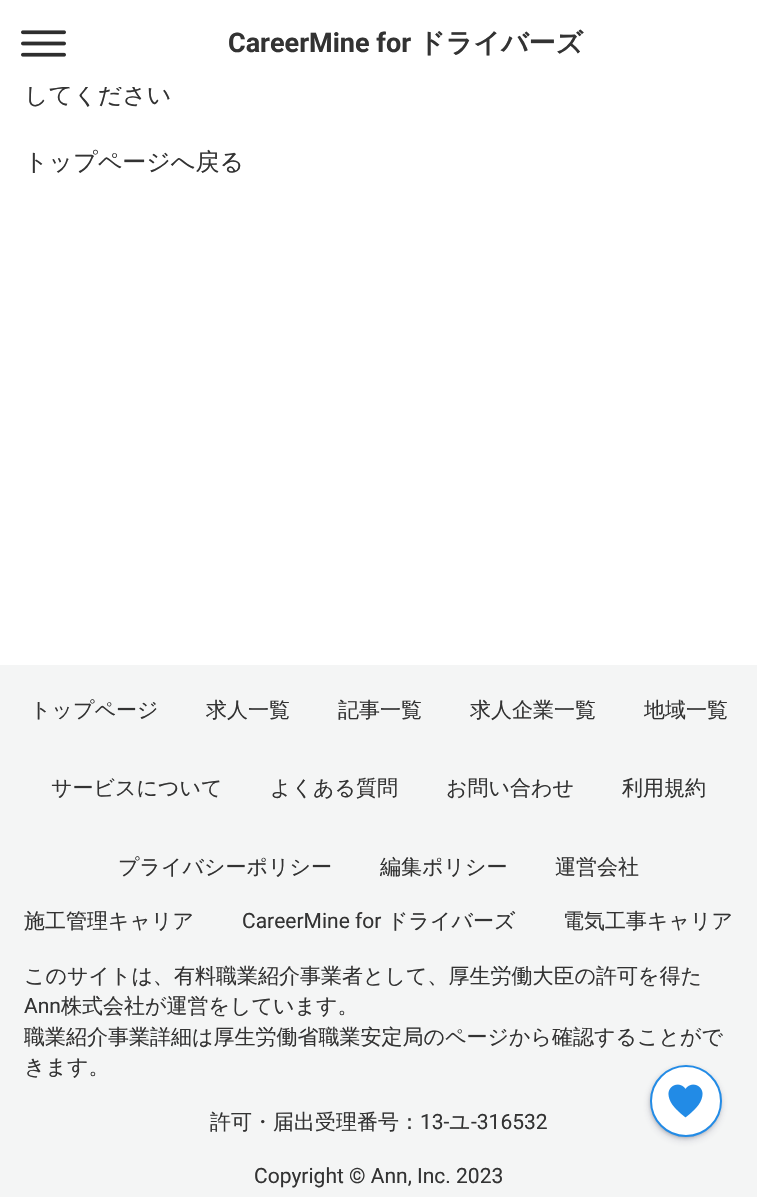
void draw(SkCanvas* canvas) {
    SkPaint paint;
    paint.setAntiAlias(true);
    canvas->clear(0xFFFFFFFF);
    SkFont font1(fontMgr->matchFamilyStyle("WenQuanYi Zen Hei", SkFontStyle(500, SkFontStyle::kNormal_Width, SkFontStyle::kUpright_Slant)), 24);
    font1.setSubpixel(true);
    paint.setColor(0xFF333333);
    canvas->drawString("してください", 24, 103, font1, paint);
    paint.setColor(0xFFFFFFFF);
    canvas->drawRect(SkRect::MakeXYWH(29, 85, 106, 2), paint);
    canvas->drawImageRect(SkImages::DeferredFromEncodedData(SkData::MakeFromFileName("img1.png")), SkRect::MakeXYWH(21, 30, 45, 27), SkSamplingOptions());
    SkFont font2(fontMgr->matchFamilyStyle("Roboto", SkFontStyle::Bold()), 27);
    font2.setSubpixel(true);
    paint.setColor(0xFF333333);
    canvas->drawString("CareerMine for", 228, 52, font2, paint);
    SkFont font3(fontMgr->matchFamilyStyle("WenQuanYi Zen Hei", SkFontStyle::Bold()), 27);
    font3.setSubpixel(true);
    canvas->drawString("ドライバーズ", 418, 52, font3, paint);
    canvas->drawString("トップページへ戻る", 24, 170, font1, paint);
    paint.setColor(0xFFF4F5F5);
    canvas->drawRect(SkRect::MakeXYWH(0, 665, 757, 532), paint);
    SkFont font4(fontMgr->matchFamilyStyle("WenQuanYi Zen Hei", SkFontStyle(500, SkFontStyle::kNormal_Width, SkFontStyle::kUpright_Slant)), 21);
    font4.setSubpixel(true);
    paint.setColor(0xFF333333);
    canvas->drawString("トップページ", 30, 717, font4, paint);
    canvas->drawString("求人一覧", 206, 717, font4, paint);
    canvas->drawString("記事一覧", 338, 717, font4, paint);
    canvas->drawString("求人企業一覧", 470, 717, font4, paint);
    canvas->drawString("地域一覧", 644, 717, font4, paint);
    canvas->drawString("サービスについて", 51, 795, font4, paint);
    canvas->drawString("よくある質問", 270, 795, font4, paint);
    canvas->drawString("お問い合わせ", 446, 795, font4, paint);
    canvas->drawString("利用規約", 622, 795, font4, paint);
    canvas->drawString("プライバシーポリシー", 118, 874, font4, paint);
    canvas->drawString("編集ポリシー", 380, 874, font4, paint);
    canvas->drawString("運営会社", 555, 874, font4, paint);
    canvas->drawString("施工管理キャリア", 24, 928, font4, paint);
    SkFont font5(fontMgr->matchFamilyStyle("Roboto", SkFontStyle::Normal()), 21);
    font5.setSubpixel(true);
    canvas->drawString("CareerMine for", 242, 928, font5, paint);
    canvas->drawString("ドライバーズ", 387, 928, font4, paint);
    canvas->drawString("電気工事キャリア", 563, 928, font4, paint);
    canvas->drawString("このサイトは、有料職業紹介事業者として、厚生労働大臣の許可を得た", 24, 983, font4, paint);
    canvas->drawString("Ann", 24, 1013, font5, paint);
    canvas->drawString("株式会社が運営をしています。", 61, 1013, font4, paint);
    canvas->drawString("職業紹介事業詳細は厚生労働省職業安定局のページから確認することがで", 24, 1044, font4, paint);
    canvas->drawString("きます。", 24, 1074, font4, paint);
    canvas->drawString("許可・届出受理番号：", 210, 1129, font4, paint);
    canvas->drawString("13-", 420, 1129, font5, paint);
    canvas->drawString("ユ", 449, 1129, font4, paint);
    canvas->drawString("‐316532", 471, 1129, font5, paint);
    canvas->drawString("Copyright © Ann, Inc. 2023", 254, 1183, font5, paint);
    paint.setColor(0x4D000000);
    paint.setMaskFilter(SkMaskFilter::MakeBlur(kNormal_SkBlurStyle, 2));
    canvas->drawRoundRect(SkRect::MakeXYWH(651, 1068, 69, 69), 34.5f, 34.5f, paint);
    paint.setMaskFilter(nullptr);
    paint.setColor(0x4032325D);
    paint.setMaskFilter(SkMaskFilter::MakeBlur(kNormal_SkBlurStyle, 4));
    canvas->drawRoundRect(SkRect::MakeXYWH(651, 1070, 69, 69), 34.5f, 34.5f, paint);
    paint.setMaskFilter(nullptr);
    paint.setColor(0xFFFFFFFF);
    canvas->drawCircle(686, 1101, 35, paint);
    paint.setStyle(SkPaint::kStroke_Style);
    paint.setStrokeWidth(2);
    paint.setColor(0xFF228BE6);
    canvas->drawCircle(686, 1101, 35, paint);
    canvas->drawImageRect(SkImages::DeferredFromEncodedData(SkData::MakeFromFileName("img2.png")), SkRect::MakeXYWH(668, 1084, 35, 34), SkSamplingOptions());
}
